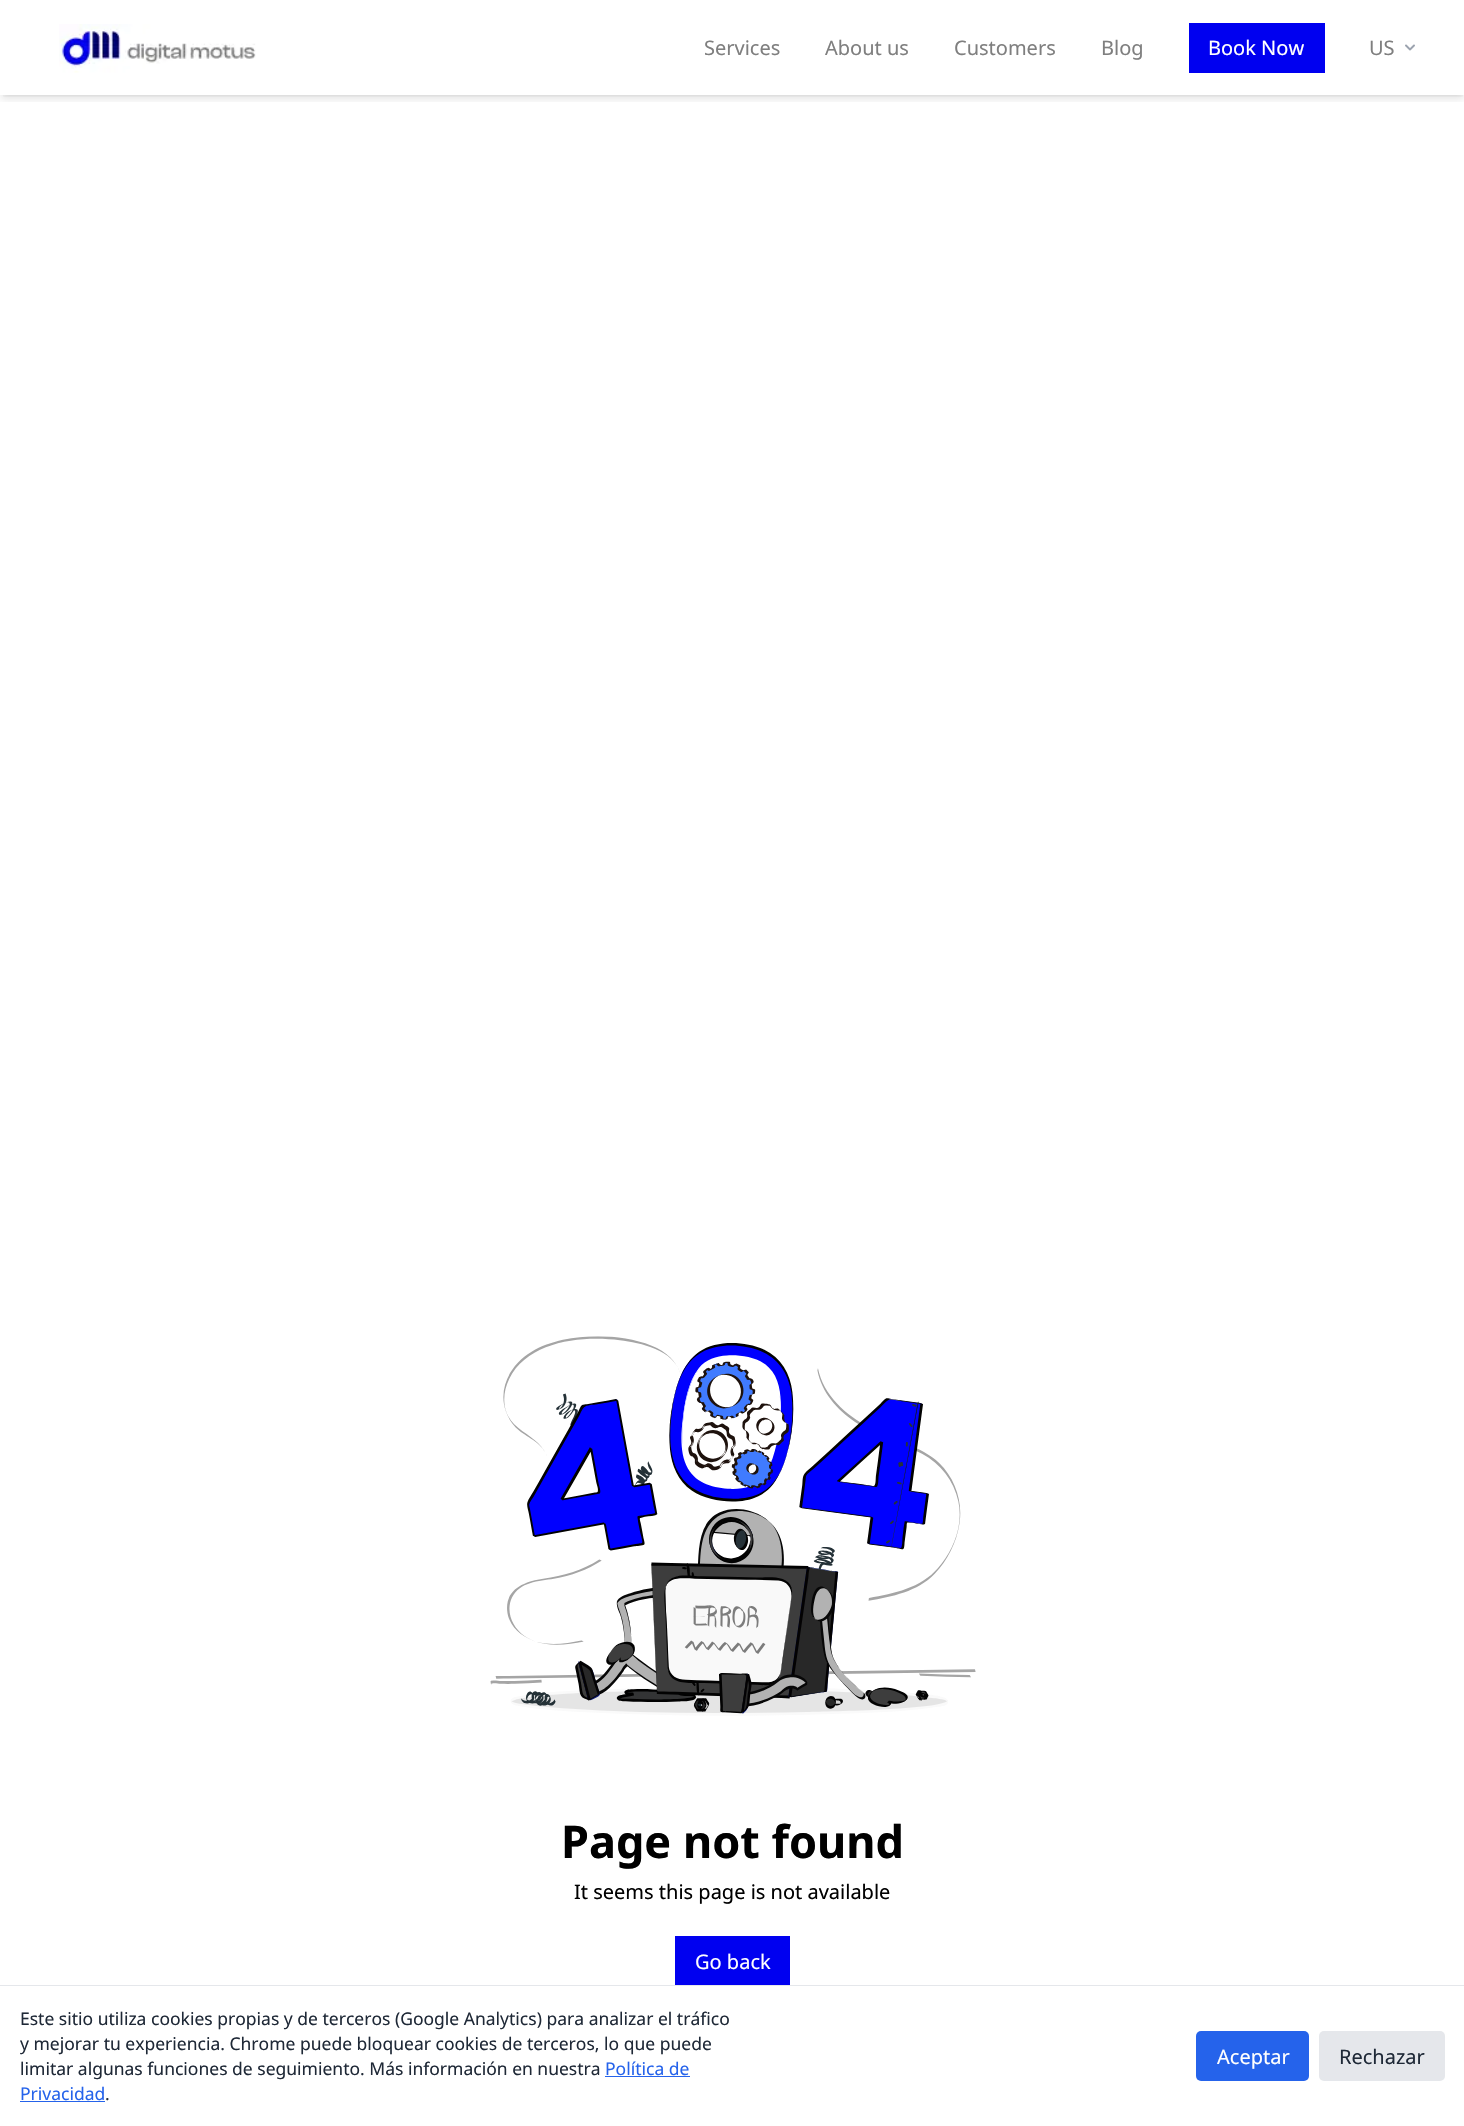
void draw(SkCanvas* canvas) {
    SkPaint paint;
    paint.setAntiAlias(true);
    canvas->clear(0xFFFFFFFF);
    canvas->save();
    canvas->clipRect(SkRect::MakeXYWH(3, 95, 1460, 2));
    paint.setColor(0x1A000000);
    paint.setMaskFilter(SkMaskFilter::MakeBlur(kNormal_SkBlurStyle, 2.5f));
    canvas->drawRect(SkRect::MakeXYWH(3, 5, 1460, 90), paint);
    paint.setMaskFilter(nullptr);
    canvas->restore();
    canvas->save();
    canvas->clipRect(SkRect::MakeXYWH(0, 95, 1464, 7));
    paint.setMaskFilter(SkMaskFilter::MakeBlur(kNormal_SkBlurStyle, 4));
    canvas->drawRect(SkRect::MakeXYWH(1, 6, 1463, 93), paint);
    paint.setMaskFilter(nullptr);
    canvas->restore();
    canvas->drawImageRect(SkImages::DeferredFromEncodedData(SkData::MakeFromFileName("img1.png")), SkRect::MakeXYWH(59, 24, 197, 49), SkSamplingOptions());
    SkFont font1(fontMgr->matchFamilyStyle("Noto Sans", SkFontStyle::Normal()), 20);
    font1.setSubpixel(true);
    paint.setColor(0xFF7F7F7F);
    canvas->drawString("Services", 704, 55, font1, paint);
    canvas->drawString("About us", 825, 55, font1, paint);
    canvas->drawString("Customers", 954, 55, font1, paint);
    canvas->drawString("Blog", 1101, 55, font1, paint);
    paint.setColor(0xFF0000F0);
    canvas->drawRect(SkRect::MakeXYWH(1189, 23, 136, 50), paint);
    paint.setColor(0xFFFFFFFF);
    canvas->drawString("Book Now", 1208, 55, font1, paint);
    paint.setColor(0xFF7F7F7F);
    canvas->drawString("US", 1369, 55, font1, paint);
    canvas->drawImageRect(SkImages::DeferredFromEncodedData(SkData::MakeFromFileName("img2.png")), SkRect::MakeXYWH(1405, 44, 10, 7), SkSamplingOptions());
    canvas->drawImageRect(SkImages::DeferredFromEncodedData(SkData::MakeFromFileName("img3.png")), SkRect::MakeXYWH(490, 1336, 486, 380), SkSamplingOptions());
    SkFont font2(fontMgr->matchFamilyStyle("Noto Sans", SkFontStyle::Bold()), 45);
    font2.setSubpixel(true);
    paint.setColor(0xFF000000);
    canvas->drawString("Page not found", 561, 1858, font2, paint);
    canvas->drawString("It seems this page is not available", 574, 1899, font1, paint);
    paint.setColor(0xFF0000F0);
    canvas->drawRect(SkRect::MakeXYWH(675, 1936, 115, 49), paint);
    paint.setColor(0xFFFFFFFF);
    canvas->drawString("Go back", 695, 1969, font1, paint);
    paint.setColor(0xFFE5E7EB);
    canvas->drawRect(SkRect::MakeXYWH(0, 1985, 1464, 1), paint);
    SkFont font3(fontMgr->matchFamilyStyle("Noto Sans", SkFontStyle::Normal()), 17.5f);
    font3.setSubpixel(true);
    paint.setColor(0xFF1F2937);
    canvas->drawString("Este sitio utiliza cookies propias y de terceros (Google Analytics) para analizar el tráfico", 20, 2025, font3, paint);
    canvas->drawString("y mejorar tu experiencia. Chrome puede bloquear cookies de terceros, lo que puede", 20, 2050, font3, paint);
    canvas->drawString("limitar algunas funciones de seguimiento. Más información en nuestra", 20, 2075, font3, paint);
    paint.setColor(0xFF2563EB);
    canvas->drawString("Política de", 605, 2075, font3, paint);
    canvas->drawRect(SkRect::MakeXYWH(605, 2076, 85, 1), paint);
    canvas->drawString("Privacidad", 20, 2100, font3, paint);
    canvas->drawRect(SkRect::MakeXYWH(20, 2101, 85, 1), paint);
    paint.setColor(0xFF1F2937);
    canvas->drawString(".", 105, 2100, font3, paint);
    paint.setColor(0xFF2563EB);
    canvas->drawRoundRect(SkRect::MakeXYWH(1196, 2031, 113, 50), 5, 5, paint);
    paint.setColor(0xFFFFFFFF);
    canvas->drawString("Aceptar", 1217, 2064, font1, paint);
    paint.setColor(0xFFE5E7EB);
    canvas->drawRoundRect(SkRect::MakeXYWH(1319, 2031, 126, 50), 5, 5, paint);
    paint.setColor(0xFF1F2937);
    canvas->drawString("Rechazar", 1339, 2064, font1, paint);
}
